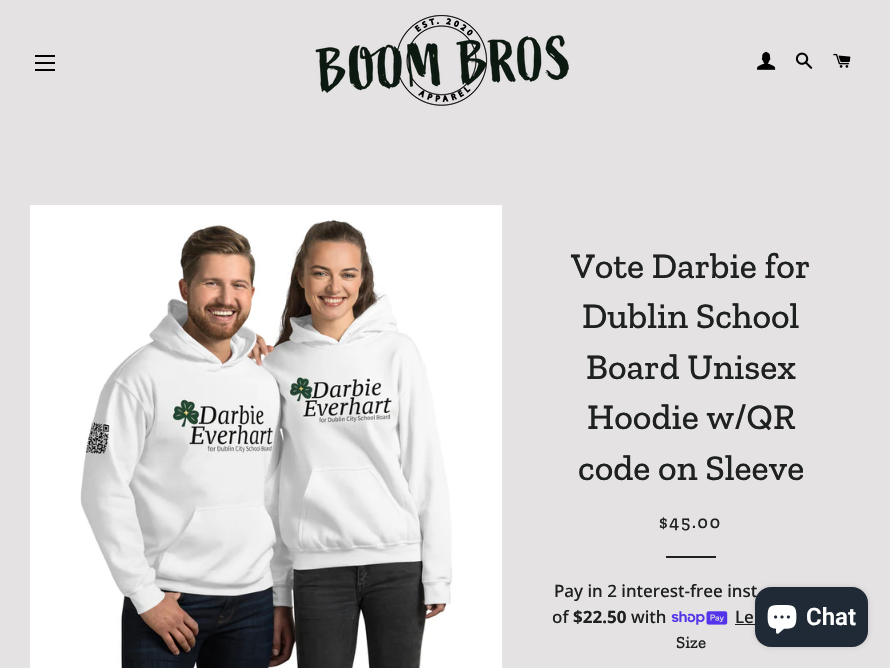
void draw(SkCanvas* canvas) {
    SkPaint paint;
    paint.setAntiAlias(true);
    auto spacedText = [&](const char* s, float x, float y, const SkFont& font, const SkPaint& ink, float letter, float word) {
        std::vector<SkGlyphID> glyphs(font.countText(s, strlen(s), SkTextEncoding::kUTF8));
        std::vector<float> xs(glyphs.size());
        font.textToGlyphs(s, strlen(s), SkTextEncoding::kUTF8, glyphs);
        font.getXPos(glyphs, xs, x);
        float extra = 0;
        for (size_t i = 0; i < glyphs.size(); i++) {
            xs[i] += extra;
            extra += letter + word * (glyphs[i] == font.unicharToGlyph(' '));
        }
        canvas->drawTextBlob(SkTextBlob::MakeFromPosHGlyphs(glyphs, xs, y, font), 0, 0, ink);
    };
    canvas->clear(0xFFE4E2E2);
    paint.setColor(0xFF000000);
    canvas->drawRect(SkRect::MakeXYWH(35, 55, 20, 2), paint);
    canvas->drawRect(SkRect::MakeXYWH(35, 62, 20, 2), paint);
    canvas->drawRect(SkRect::MakeXYWH(35, 69, 20, 2), paint);
    canvas->drawImageRect(SkImages::DeferredFromEncodedData(SkData::MakeFromFileName("img1.png")), SkRect::MakeXYWH(315, 15, 254, 91), SkSamplingOptions());
    canvas->drawImageRect(SkImages::DeferredFromEncodedData(SkData::MakeFromFileName("img2.png")), SkRect::MakeXYWH(757, 51, 19, 19), SkSamplingOptions());
    canvas->drawImageRect(SkImages::DeferredFromEncodedData(SkData::MakeFromFileName("img3.png")), SkRect::MakeXYWH(795, 52, 18, 17), SkSamplingOptions());
    canvas->drawImageRect(SkImages::DeferredFromEncodedData(SkData::MakeFromFileName("img4.png")), SkRect::MakeXYWH(833, 53, 18, 15), SkSamplingOptions());
    paint.setColor(0xFFFFFFFF);
    canvas->drawRect(SkRect::MakeXYWH(30, 205, 472, 463), paint);
    canvas->drawImageRect(SkImages::DeferredFromEncodedData(SkData::MakeFromFileName("img5.png")), SkRect::MakeXYWH(80, 218, 373, 450), SkSamplingOptions());
    SkFont font1(fontMgr->matchFamilyStyle("Zilla Slab", SkFontStyle(500, SkFontStyle::kNormal_Width, SkFontStyle::kUpright_Slant)), 36);
    font1.setSubpixel(true);
    paint.setColor(0xFF1F2021);
    canvas->drawString("Vote Darbie for", 571, 278, font1, paint);
    canvas->drawString("Dublin School", 582, 328, font1, paint);
    canvas->drawString("Board Unisex", 586, 379, font1, paint);
    canvas->drawString("Hoodie w/QR", 587, 429, font1, paint);
    canvas->drawString("code on Sleeve", 578, 480, font1, paint);
    SkFont font2(fontMgr->matchFamilyStyle("Zilla Slab", SkFontStyle(500, SkFontStyle::kNormal_Width, SkFontStyle::kUpright_Slant)), 18);
    font2.setSubpixel(true);
    spacedText("$45.00", 659, 528, font2, paint, 1.75f, 0);
    canvas->drawRect(SkRect::MakeXYWH(666, 556, 50, 2), paint);
    SkFont font3(fontMgr->matchFamilyStyle("Noto Sans", SkFontStyle(500, SkFontStyle::kNormal_Width, SkFontStyle::kUpright_Slant)), 17);
    font3.setSubpixel(true);
    canvas->drawString("Pay in 2 interest-free inst", 554, 597, font3, paint);
    canvas->drawString("of", 552, 623, font3, paint);
    SkFont font4(fontMgr->matchFamilyStyle("Noto Sans", SkFontStyle::Bold()), 17);
    font4.setSubpixel(true);
    canvas->drawString("$22.50", 573, 623, font4, paint);
    canvas->drawString("with", 631, 623, font3, paint);
    canvas->drawImageRect(SkImages::DeferredFromEncodedData(SkData::MakeFromFileName("img6.png")), SkRect::MakeXYWH(671, 611, 57, 14), SkSamplingOptions());
    canvas->drawString("Le", 735, 623, font3, paint);
    canvas->drawRect(SkRect::MakeXYWH(735, 624, 20, 1), paint);
    SkFont font5(fontMgr->matchFamilyStyle("Zilla Slab", SkFontStyle(500, SkFontStyle::kNormal_Width, SkFontStyle::kUpright_Slant)), 17);
    font5.setSubpixel(true);
    canvas->drawString("Size", 676, 648, font5, paint);
    paint.setColor(0x26000000);
    paint.setMaskFilter(SkMaskFilter::MakeBlur(kNormal_SkBlurStyle, 2.5f));
    canvas->drawRoundRect(SkRect::MakeXYWH(755, 587, 113, 60), 16, 16, paint);
    paint.setMaskFilter(nullptr);
    paint.setColor(0xFF202A36);
    canvas->drawRoundRect(SkRect::MakeXYWH(755, 587, 113, 60), 16, 16, paint);
    canvas->drawImageRect(SkImages::DeferredFromEncodedData(SkData::MakeFromFileName("img7.png")), SkRect::MakeXYWH(767, 605, 30, 29), SkSamplingOptions());
    SkFont font6(fontMgr->matchFamilyStyle("Roboto", SkFontStyle(600, SkFontStyle::kNormal_Width, SkFontStyle::kUpright_Slant)), 24);
    font6.setSubpixel(true);
    paint.setColor(0xFFFFFFFF);
    canvas->drawString("Chat", 806, 625, font6, paint);
}
